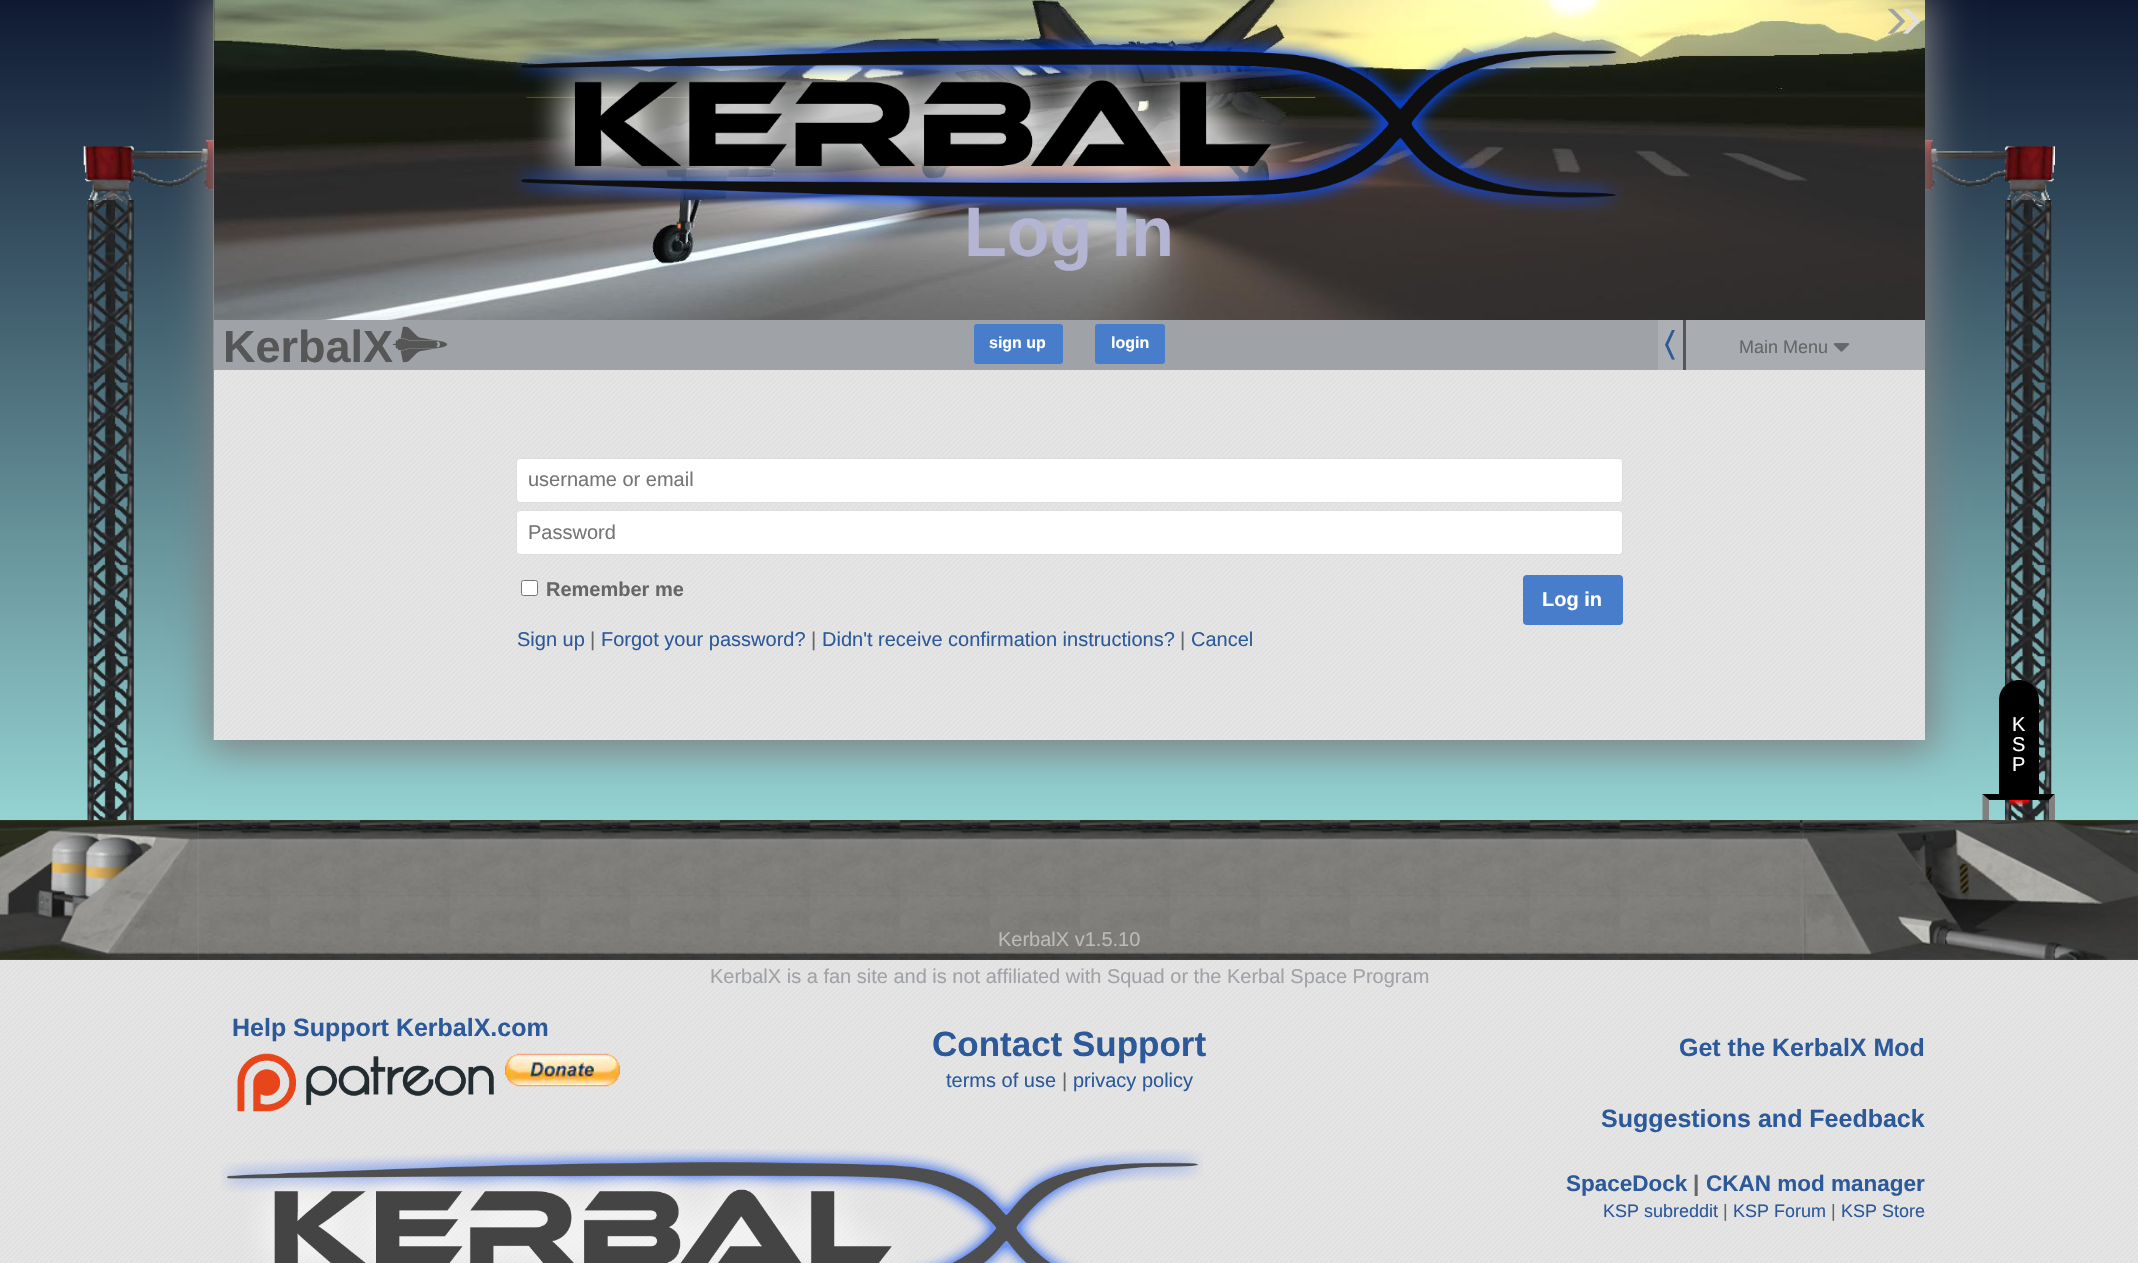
void draw(SkCanvas* canvas) {
    SkPaint paint;
    paint.setAntiAlias(true);
    canvas->clear(0xFFFFFFFF);
    canvas->drawImageRect(SkImages::DeferredFromEncodedData(SkData::MakeFromFileName("img1.png")), SkRect::MakeXYWH(0, 960, 2138, 303), SkSamplingOptions());
    {
        const SkColor colors[] = {0xFF0F1932, 0xFF95D3D2};
        const float stops[] = {0, 1};
        const SkPoint ends[] = {{1069, 0}, {1069, 820}};
        paint.setShader(SkGradientShader::MakeLinear(ends, colors, stops, 2, SkTileMode::kClamp));
        paint.setAlpha(255);
    }
    canvas->drawRect(SkRect::MakeXYWH(0, 0, 2138, 820), paint);
    canvas->drawImageRect(SkImages::DeferredFromEncodedData(SkData::MakeFromFileName("img2.png")), SkRect::MakeXYWH(83, 140, 131, 67), SkSamplingOptions());
    canvas->drawImageRect(SkImages::DeferredFromEncodedData(SkData::MakeFromFileName("img3.png")), SkRect::MakeXYWH(1925, 140, 130, 67), SkSamplingOptions());
    canvas->drawImageRect(SkImages::DeferredFromEncodedData(SkData::MakeFromFileName("img4.png")), SkRect::MakeXYWH(87, 200, 47, 620), SkSamplingOptions());
    canvas->drawImageRect(SkImages::DeferredFromEncodedData(SkData::MakeFromFileName("img5.png")), SkRect::MakeXYWH(2005, 200, 47, 620), SkSamplingOptions());
    paint.setShader(nullptr);
    paint.setColor(0xFF808080);
    paint.setMaskFilter(SkMaskFilter::MakeBlur(kNormal_SkBlurStyle, 19));
    canvas->drawRect(SkRect::MakeXYWH(208, -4, 1723, 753), paint);
    paint.setMaskFilter(nullptr);
    canvas->drawImageRect(SkImages::DeferredFromEncodedData(SkData::MakeFromFileName("img6.png")), SkRect::MakeXYWH(213, 0, 1712, 740), SkSamplingOptions());
    canvas->drawImageRect(SkImages::DeferredFromEncodedData(SkData::MakeFromFileName("img9.png")), SkRect::MakeXYWH(213, 0, 1712, 320), SkSamplingOptions());
    canvas->drawImageRect(SkImages::DeferredFromEncodedData(SkData::MakeFromFileName("img7.png")), SkRect::MakeXYWH(1888, 8, 17, 26), SkSamplingOptions());
    canvas->drawImageRect(SkImages::DeferredFromEncodedData(SkData::MakeFromFileName("img8.png")), SkRect::MakeXYWH(1903, 8, 17, 26), SkSamplingOptions());
    canvas->drawImageRect(SkImages::DeferredFromEncodedData(SkData::MakeFromFileName("img10.png")), SkRect::MakeXYWH(512, 34, 1112, 178), SkSamplingOptions());
    SkFont font1(fontMgr->matchFamilyStyle("Liberation Sans", SkFontStyle::Bold()), 70);
    font1.setSubpixel(true);
    paint.setColor(0xFFB4B4D3);
    canvas->drawString("Log In", 964, 256, font1, paint);
    paint.setColor(0xFF9FA2A7);
    canvas->drawRect(SkRect::MakeXYWH(214, 320, 1444, 50), paint);
    SkFont font2(fontMgr->matchFamilyStyle("Liberation Sans", SkFontStyle::Bold()), 45);
    font2.setSubpixel(true);
    paint.setColor(0xFF565657);
    canvas->drawString("KerbalX", 223, 362, font2, paint);
    canvas->drawImageRect(SkImages::DeferredFromEncodedData(SkData::MakeFromFileName("img11.png")), SkRect::MakeXYWH(392, 326, 56, 37), SkSamplingOptions());
    paint.setColor(0xFF477DCA);
    canvas->drawRoundRect(SkRect::MakeXYWH(974, 324, 89, 40), 3, 3, paint);
    SkFont font3(fontMgr->matchFamilyStyle("Liberation Sans", SkFontStyle::Bold()), 16);
    font3.setSubpixel(true);
    paint.setColor(0xFFFFFFFF);
    canvas->drawString("sign up", 989, 348, font3, paint);
    paint.setColor(0xFF477DCA);
    canvas->drawRoundRect(SkRect::MakeXYWH(1095, 324, 70, 40), 3, 3, paint);
    paint.setColor(0xFFFFFFFF);
    canvas->drawString("login", 1111, 348, font3, paint);
    paint.setColor(0xFFACAFB3);
    canvas->drawRect(SkRect::MakeXYWH(1658, 320, 25, 50), paint);
    paint.setColor(0xFF565657);
    canvas->drawRect(SkRect::MakeXYWH(1683, 320, 3, 50), paint);
    canvas->drawImageRect(SkImages::DeferredFromEncodedData(SkData::MakeFromFileName("img12.png")), SkRect::MakeXYWH(1665, 330, 10, 30), SkSamplingOptions());
    paint.setColor(0xFFA9ACB1);
    canvas->drawRect(SkRect::MakeXYWH(1686, 320, 239, 50), paint);
    SkFont font4(fontMgr->matchFamilyStyle("Liberation Sans", SkFontStyle::Normal()), 18);
    font4.setSubpixel(true);
    paint.setColor(0xFF666666);
    canvas->drawString("Main Menu", 1739, 353, font4, paint);
    canvas->drawImageRect(SkImages::DeferredFromEncodedData(SkData::MakeFromFileName("img13.png")), SkRect::MakeXYWH(1833, 343, 17, 9), SkSamplingOptions());
    paint.setColor(0xFFFFFFFF);
    canvas->drawRoundRect(SkRect::MakeXYWH(516.5f, 458.5f, 1106, 44), 3.5f, 3.5f, paint);
    paint.setStyle(SkPaint::kStroke_Style);
    paint.setStrokeWidth(1);
    paint.setColor(0xFFDDDDDD);
    canvas->drawRoundRect(SkRect::MakeXYWH(516.5f, 458.5f, 1106, 44), 3.5f, 3.5f, paint);
    SkFont font5(fontMgr->matchFamilyStyle("Liberation Sans", SkFontStyle::Normal()), 20);
    font5.setSubpixel(true);
    paint.setStyle(SkPaint::kFill_Style);
    paint.setColor(0xFF757575);
    canvas->drawString("username or email", 528, 486, font5, paint);
    paint.setColor(0xFFFFFFFF);
    canvas->drawRoundRect(SkRect::MakeXYWH(516.5f, 510.5f, 1106, 44), 3.5f, 3.5f, paint);
    paint.setStyle(SkPaint::kStroke_Style);
    paint.setColor(0xFFDDDDDD);
    canvas->drawRoundRect(SkRect::MakeXYWH(516.5f, 510.5f, 1106, 44), 3.5f, 3.5f, paint);
    paint.setStyle(SkPaint::kFill_Style);
    paint.setColor(0xFF757575);
    canvas->drawString("Password", 528, 539, font5, paint);
    paint.setColor(0xFFFFFFFF);
    canvas->drawRoundRect(SkRect::MakeXYWH(521.5f, 580.5f, 16, 15), 2, 2, paint);
    paint.setStyle(SkPaint::kStroke_Style);
    paint.setColor(0xFF767676);
    canvas->drawRoundRect(SkRect::MakeXYWH(521.5f, 580.5f, 16, 15), 2, 2, paint);
    SkFont font6(fontMgr->matchFamilyStyle("Liberation Sans", SkFontStyle::Bold()), 20);
    font6.setSubpixel(true);
    paint.setStyle(SkPaint::kFill_Style);
    paint.setColor(0xFF666666);
    canvas->drawString("Remember me", 546, 596, font6, paint);
    paint.setColor(0xFF477DCA);
    canvas->drawRoundRect(SkRect::MakeXYWH(1523, 575, 100, 50), 4, 4, paint);
    paint.setColor(0xFFFFFFFF);
    canvas->drawString("Log in", 1542, 606, font6, paint);
    paint.setColor(0xFF2C5999);
    canvas->drawString("Sign up", 517, 646, font5, paint);
    paint.setColor(0xFF666666);
    canvas->drawString("|", 590, 646, font5, paint);
    paint.setColor(0xFF2C5999);
    canvas->drawString("Forgot your password?", 601, 646, font5, paint);
    paint.setColor(0xFF666666);
    canvas->drawString("|", 811, 646, font5, paint);
    paint.setColor(0xFF2C5999);
    canvas->drawString("Didn't receive confirmation instructions?", 822, 646, font5, paint);
    paint.setColor(0xFF666666);
    canvas->drawString("|", 1180, 646, font5, paint);
    paint.setColor(0xFF2C5999);
    canvas->drawString("Cancel", 1191, 646, font5, paint);
    paint.setColor(0xFF000000);
    canvas->drawRect(SkRect::MakeXYWH(1999, 720, 40, 74), paint);
    canvas->drawPath(SkPathBuilder().moveTo(2019, 680).cubicTo(2030, 680, 2039, 689, 2039, 700).lineTo(2039, 720).lineTo(1999, 720).lineTo(1999, 700).cubicTo(1999, 689, 2008, 680, 2019, 680).close().detach(), paint);
    paint.setColor(0xFFFFFFFF);
    canvas->drawString("K", 2012, 731, font5, paint);
    canvas->drawString("S", 2012, 751, font5, paint);
    canvas->drawString("P", 2012, 771, font5, paint);
    {
        const SkColor colors[] = {0xFFFF0000, 0x0DFF0000};
        const float stops[] = {0, 1};
        const SkPoint ends[] = {{2019, 800}, {2019, 806}};
        paint.setShader(SkGradientShader::MakeLinear(ends, colors, stops, 2, SkTileMode::kClamp));
        paint.setAlpha(255);
    }
    canvas->drawPath(SkPathBuilder().moveTo(2009, 800).lineTo(2029, 800).cubicTo(2029, 803.5f, 2026.5f, 806, 2023, 806).lineTo(2015, 806).cubicTo(2011.5f, 806, 2009, 803.5f, 2009, 800).close().detach(), paint);
    paint.setShader(nullptr);
    paint.setColor(0xFF000000);
    canvas->drawPath(SkPathBuilder().moveTo(1982, 794).lineTo(2055, 794).lineTo(2049, 800).lineTo(1989, 800).close().detach(), paint);
    paint.setColor(0xFF808080);
    canvas->drawPath(SkPathBuilder().moveTo(2055, 794).lineTo(2055, 820).lineTo(2049, 820).lineTo(2049, 800).close().detach(), paint);
    canvas->drawPath(SkPathBuilder().moveTo(1982.5f, 820).lineTo(1982.5f, 794).lineTo(1989, 800).lineTo(1989, 820).close().detach(), paint);
    canvas->drawImageRect(SkImages::DeferredFromEncodedData(SkData::MakeFromFileName("img14.png")), SkRect::MakeXYWH(198, 820, 1605, 140), SkSamplingOptions());
    canvas->drawImageRect(SkImages::DeferredFromEncodedData(SkData::MakeFromFileName("img15.png")), SkRect::MakeXYWH(0, 820, 199, 140), SkSamplingOptions());
    paint.setColor(0xFFBCBBB9);
    canvas->drawString("KerbalX v1.5.10", 998, 946, font5, paint);
    canvas->drawImageRect(SkImages::DeferredFromEncodedData(SkData::MakeFromFileName("img16.png")), SkRect::MakeXYWH(1802, 820, 336, 140), SkSamplingOptions());
    paint.setColor(0xFF9FA2A7);
    canvas->drawString("KerbalX is a fan site and is not affiliated with Squad or the Kerbal Space Program", 710, 983, font5, paint);
    SkFont font7(fontMgr->matchFamilyStyle("Liberation Sans", SkFontStyle::Bold()), 25);
    font7.setSubpixel(true);
    paint.setColor(0xFF2C5999);
    canvas->drawString("Help Support KerbalX.com", 232, 1036, font7, paint);
    canvas->drawImageRect(SkImages::DeferredFromEncodedData(SkData::MakeFromFileName("img17.png")), SkRect::MakeXYWH(237, 1053, 257, 59), SkSamplingOptions());
    canvas->drawImageRect(SkImages::DeferredFromEncodedData(SkData::MakeFromFileName("img18.png")), SkRect::MakeXYWH(505, 1053, 115, 34), SkSamplingOptions());
    SkFont font8(fontMgr->matchFamilyStyle("Liberation Sans", SkFontStyle::Bold()), 35);
    font8.setSubpixel(true);
    canvas->drawString("Contact Support", 932, 1056, font8, paint);
    canvas->drawString("terms of use", 946, 1087, font5, paint);
    paint.setColor(0xFF666666);
    canvas->drawString("|", 1062, 1087, font5, paint);
    paint.setColor(0xFF2C5999);
    canvas->drawString("privacy policy", 1073, 1087, font5, paint);
    canvas->drawString("Get the KerbalX Mod", 1679, 1056, font7, paint);
    canvas->drawString("Suggestions and Feedback", 1601, 1127, font7, paint);
    canvas->drawImageRect(SkImages::DeferredFromEncodedData(SkData::MakeFromFileName("img19.png")), SkRect::MakeXYWH(221, 1149, 982, 114), SkSamplingOptions());
    SkFont font9(fontMgr->matchFamilyStyle("Liberation Sans", SkFontStyle::Bold()), 22.5f);
    font9.setSubpixel(true);
    canvas->drawString("SpaceDock", 1566, 1191, font9, paint);
    paint.setColor(0xFF666666);
    canvas->drawString("|", 1693, 1191, font9, paint);
    paint.setColor(0xFF2C5999);
    canvas->drawString("CKAN mod manager", 1706, 1191, font9, paint);
    canvas->drawString("KSP subreddit", 1603, 1217, font4, paint);
    paint.setColor(0xFF666666);
    canvas->drawString("|", 1723, 1217, font4, paint);
    paint.setColor(0xFF2C5999);
    canvas->drawString("KSP Forum", 1733, 1217, font4, paint);
    paint.setColor(0xFF666666);
    canvas->drawString("|", 1831, 1217, font4, paint);
    paint.setColor(0xFF2C5999);
    canvas->drawString("KSP Store", 1841, 1217, font4, paint);
}
